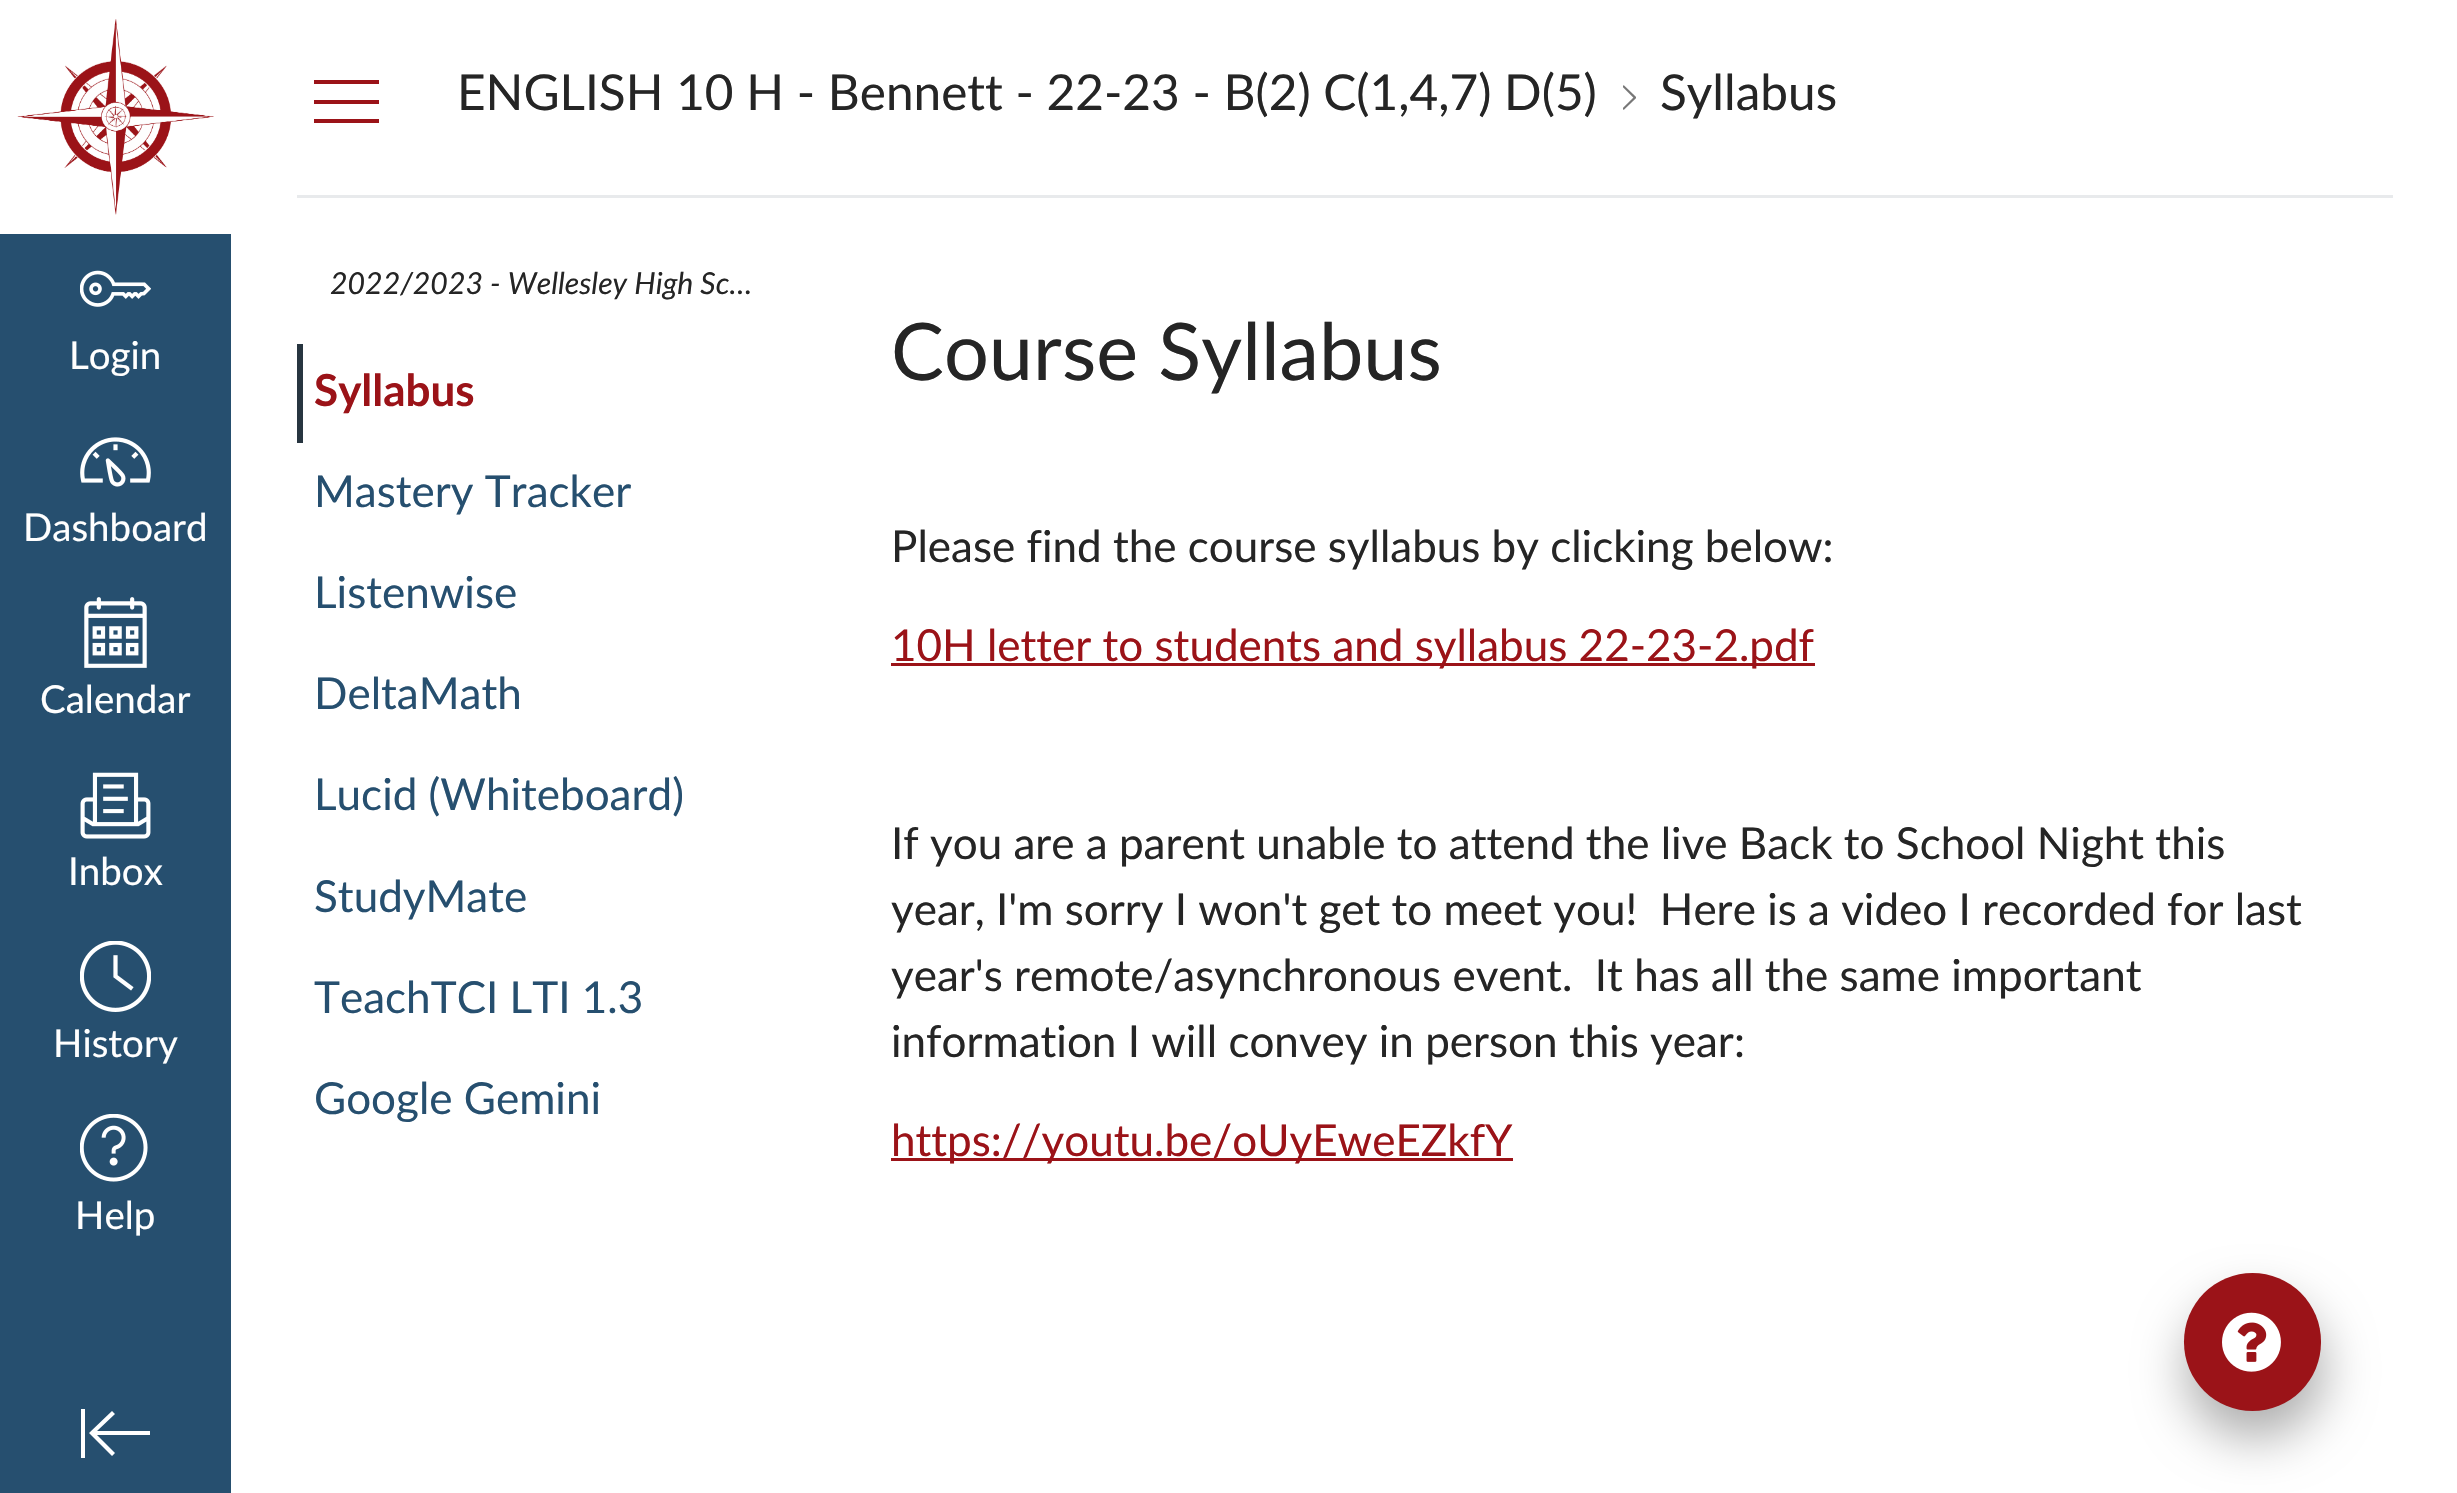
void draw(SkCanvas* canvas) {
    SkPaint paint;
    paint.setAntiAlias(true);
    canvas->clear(0xFFFFFFFF);
    paint.setColor(0xFF264F6F);
    canvas->drawRect(SkRect::MakeXYWH(0, 234, 231, 1259), paint);
    canvas->drawImageRect(SkImages::DeferredFromEncodedData(SkData::MakeFromFileName("img1.png")), SkRect::MakeXYWH(17, 19, 197, 196), SkSamplingOptions());
    canvas->drawImageRect(SkImages::DeferredFromEncodedData(SkData::MakeFromFileName("img2.png")), SkRect::MakeXYWH(80, 270, 71, 37), SkSamplingOptions());
    SkFont font1(fontMgr->matchFamilyStyle("Lato", SkFontStyle::Normal()), 38.5f);
    font1.setSubpixel(true);
    paint.setColor(0xFFFFFFFF);
    canvas->drawString("Login", 69, 369, font1, paint);
    canvas->drawImageRect(SkImages::DeferredFromEncodedData(SkData::MakeFromFileName("img3.png")), SkRect::MakeXYWH(80, 437, 71, 50), SkSamplingOptions());
    canvas->drawString("Dashboard", 23, 541, font1, paint);
    canvas->drawImageRect(SkImages::DeferredFromEncodedData(SkData::MakeFromFileName("img4.png")), SkRect::MakeXYWH(84, 597, 63, 71), SkSamplingOptions());
    canvas->drawString("Calendar", 40, 713, font1, paint);
    canvas->drawImageRect(SkImages::DeferredFromEncodedData(SkData::MakeFromFileName("img5.png")), SkRect::MakeXYWH(80, 772, 71, 67), SkSamplingOptions());
    canvas->drawString("Inbox", 68, 885, font1, paint);
    canvas->drawImageRect(SkImages::DeferredFromEncodedData(SkData::MakeFromFileName("img6.png")), SkRect::MakeXYWH(80, 941, 71, 71), SkSamplingOptions());
    canvas->drawString("History", 53, 1057, font1, paint);
    canvas->drawImageRect(SkImages::DeferredFromEncodedData(SkData::MakeFromFileName("img7.png")), SkRect::MakeXYWH(80, 1114, 68, 68), SkSamplingOptions());
    canvas->drawString("Help", 75, 1229, font1, paint);
    canvas->drawPath(SkPathBuilder().moveTo(81, 1458).lineTo(81, 1409).lineTo(85, 1409).lineTo(85, 1458).close().moveTo(89, 1433).lineTo(112, 1411).lineTo(115, 1414).lineTo(97, 1431).lineTo(150, 1431).lineTo(150, 1435).lineTo(97, 1435).lineTo(115, 1453).lineTo(112, 1456).close().detach(), paint);
    paint.setColor(0xFFE8EAEC);
    canvas->drawRect(SkRect::MakeXYWH(297, 195, 2096, 3), paint);
    paint.setColor(0xFF9B1318);
    canvas->drawPath(SkPathBuilder().moveTo(379, 119).lineTo(379, 123).lineTo(314, 123).lineTo(314, 119).close().moveTo(379, 100).lineTo(379, 104).lineTo(314, 104).lineTo(314, 100).close().moveTo(379, 80).lineTo(379, 84).lineTo(314, 84).lineTo(314, 80).close().detach(), paint);
    SkFont font2(fontMgr->matchFamilyStyle("Lato", SkFontStyle::Normal()), 49.5f);
    font2.setSubpixel(true);
    paint.setColor(0xFF252525);
    canvas->drawString("ENGLISH 10 H - Bennett - 22-23 - B(2) C(1,4,7) D(5)", 457, 110, font2, paint);
    canvas->drawImageRect(SkImages::DeferredFromEncodedData(SkData::MakeFromFileName("img8.png")), SkRect::MakeXYWH(1623, 85, 13, 25), SkSamplingOptions());
    canvas->drawString("Syllabus", 1660, 110, font2, paint);
    SkFont font3(fontMgr->matchFamilyStyle("Lato", SkFontStyle::Italic()), 30.25f);
    font3.setSubpixel(true);
    canvas->drawString("2022/2023 - Wellesley High Sc…", 330, 294, font3, paint);
    paint.setColor(0xFF273540);
    canvas->drawRect(SkRect::MakeXYWH(297, 344, 6, 99), paint);
    SkFont font4(fontMgr->matchFamilyStyle("Lato", SkFontStyle::Bold()), 44);
    font4.setSubpixel(true);
    paint.setColor(0xFF9B1318);
    canvas->drawString("Syllabus", 314, 406, font4, paint);
    SkFont font5(fontMgr->matchFamilyStyle("Lato", SkFontStyle::Normal()), 44);
    font5.setSubpixel(true);
    paint.setColor(0xFF264F6F);
    canvas->drawString("Mastery Tracker", 314, 507, font5, paint);
    canvas->drawString("Listenwise", 314, 608, font5, paint);
    canvas->drawString("DeltaMath", 314, 709, font5, paint);
    canvas->drawString("Lucid (Whiteboard)", 314, 810, font5, paint);
    canvas->drawString("StudyMate", 314, 912, font5, paint);
    canvas->drawString("TeachTCI LTI 1.3", 314, 1013, font5, paint);
    canvas->drawString("Google Gemini", 314, 1114, font5, paint);
    SkFont font6(fontMgr->matchFamilyStyle("Lato", SkFontStyle::Normal()), 79.25f);
    font6.setSubpixel(true);
    paint.setColor(0xFF252525);
    canvas->drawString("Course Syllabus", 891, 380, font6, paint);
    canvas->drawString("Please find the course syllabus by clicking below:", 891, 562, font5, paint);
    paint.setColor(0xFF9B1318);
    canvas->drawRect(SkRect::MakeXYWH(891, 663, 924, 3), paint);
    canvas->drawString("10H letter to students and syllabus 22-23-2.pdf", 891, 661, font5, paint);
    paint.setColor(0xFF252525);
    canvas->drawString("If you are a parent unable to attend the live Back to School Night this", 891, 859, font5, paint);
    canvas->drawString("year, I'm sorry I won't get to meet you!  Here is a video I recorded for last", 891, 925, font5, paint);
    canvas->drawString("year's remote/asynchronous event.  It has all the same important", 891, 991, font5, paint);
    canvas->drawString("information I will convey in person this year:", 891, 1057, font5, paint);
    paint.setColor(0xFF9B1318);
    canvas->drawRect(SkRect::MakeXYWH(891, 1158, 622, 3), paint);
    canvas->drawString("https://youtu.be/oUyEweEZkfY", 891, 1156, font5, paint);
    paint.setColor(0x52000000);
    paint.setMaskFilter(SkMaskFilter::MakeBlur(kNormal_SkBlurStyle, 25));
    canvas->drawRoundRect(SkRect::MakeXYWH(2186, 1301, 138, 137), 68.5f, 68.5f, paint);
    paint.setMaskFilter(nullptr);
    paint.setColor(0xFF9B1318);
    canvas->drawRoundRect(SkRect::MakeXYWH(2184, 1273, 137, 138), 68.5f, 68.5f, paint);
    canvas->drawImageRect(SkImages::DeferredFromEncodedData(SkData::MakeFromFileName("img9.png")), SkRect::MakeXYWH(2222, 1312, 59, 60), SkSamplingOptions());
}
